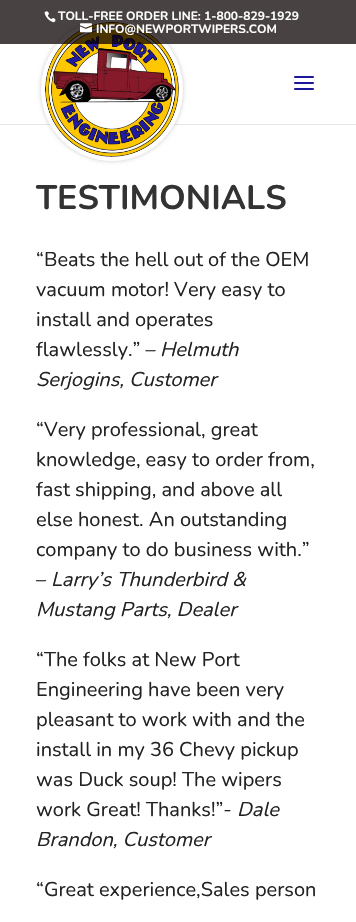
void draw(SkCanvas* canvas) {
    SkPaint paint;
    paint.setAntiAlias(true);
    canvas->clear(0xFFFFFFFF);
    paint.setColor(0xFFE6E6E6);
    canvas->drawRect(SkRect::MakeXYWH(0, 124, 356, 1), paint);
    paint.setColor(0x33000000);
    paint.setMaskFilter(SkMaskFilter::MakeBlur(kNormal_SkBlurStyle, 2));
    canvas->drawRoundRect(SkRect::MakeXYWH(41, 18, 142, 143), 71, 71, paint);
    paint.setMaskFilter(nullptr);
    paint.setColor(0xFFFFFFFF);
    canvas->drawRoundRect(SkRect::MakeXYWH(41, 18, 142, 143), 71, 71, paint);
    canvas->drawImageRect(SkImages::DeferredFromEncodedData(SkData::MakeFromFileName("img1.png")), SkRect::MakeXYWH(45, 22, 134, 135), SkSamplingOptions());
    canvas->drawImageRect(SkImages::DeferredFromEncodedData(SkData::MakeFromFileName("img2.png")), SkRect::MakeXYWH(294, 76, 20, 14), SkSamplingOptions());
    paint.setColor(0xBD0A0000);
    canvas->drawRect(SkRect::MakeXYWH(0, 0, 356, 44), paint);
    canvas->drawImageRect(SkImages::DeferredFromEncodedData(SkData::MakeFromFileName("img3.png")), SkRect::MakeXYWH(44, 11, 12, 12), SkSamplingOptions());
    SkFont font1(fontMgr->matchFamilyStyle("Nunito", SkFontStyle::Bold()), 12);
    font1.setSubpixel(true);
    paint.setColor(0xFFFFFFFF);
    canvas->drawString("TOLL-FREE ORDER LINE: 1-800-829-1929", 58, 20, font1, paint);
    canvas->drawImageRect(SkImages::DeferredFromEncodedData(SkData::MakeFromFileName("img4.png")), SkRect::MakeXYWH(80, 23, 12, 10), SkSamplingOptions());
    canvas->drawString("INFO@NEWPORTWIPERS.COM", 96, 33, font1, paint);
    SkFont font2(fontMgr->matchFamilyStyle("Nunito", SkFontStyle::Bold()), 34);
    font2.setSubpixel(true);
    paint.setColor(0xFF333333);
    canvas->drawString("TESTIMONIALS", 36, 209, font2, paint);
    SkFont font3(fontMgr->matchFamilyStyle("Nunito", SkFontStyle::Normal()), 20);
    font3.setSubpixel(true);
    paint.setColor(0xFF222222);
    canvas->drawString("“Beats the hell out of the OEM", 36, 266, font3, paint);
    canvas->drawString("vacuum motor! Very easy to", 36, 296, font3, paint);
    canvas->drawString("install and operates", 36, 326, font3, paint);
    canvas->drawString("flawlessly.” –", 36, 356, font3, paint);
    SkFont font4(fontMgr->matchFamilyStyle("Nunito", SkFontStyle::Italic()), 20);
    font4.setSubpixel(true);
    canvas->drawString("Helmuth", 160, 356, font4, paint);
    canvas->drawString("Serjogins, Customer", 36, 386, font4, paint);
    canvas->drawString("“Very professional, great", 36, 436, font3, paint);
    canvas->drawString("knowledge, easy to order from,", 36, 466, font3, paint);
    canvas->drawString("fast shipping, and above all", 36, 496, font3, paint);
    canvas->drawString("else honest. An outstanding", 36, 526, font3, paint);
    canvas->drawString("company to do business with.”", 36, 556, font3, paint);
    canvas->drawString("–", 36, 586, font3, paint);
    canvas->drawString("Larry’s Thunderbird &", 51, 586, font4, paint);
    canvas->drawString("Mustang Parts, Dealer", 36, 616, font4, paint);
    canvas->drawString("“The folks at New Port", 36, 666, font3, paint);
    canvas->drawString("Engineering have been very", 36, 696, font3, paint);
    canvas->drawString("pleasant to work with and the", 36, 726, font3, paint);
    canvas->drawString("install in my 36 Chevy pickup", 36, 756, font3, paint);
    canvas->drawString("was Duck soup! The wipers", 36, 786, font3, paint);
    canvas->drawString("work Great! Thanks!”-", 36, 816, font3, paint);
    canvas->drawString("Dale", 237, 816, font4, paint);
    canvas->drawString("Brandon, Customer", 36, 846, font4, paint);
    canvas->drawString("“Great experience,Sales person", 36, 896, font3, paint);
}
